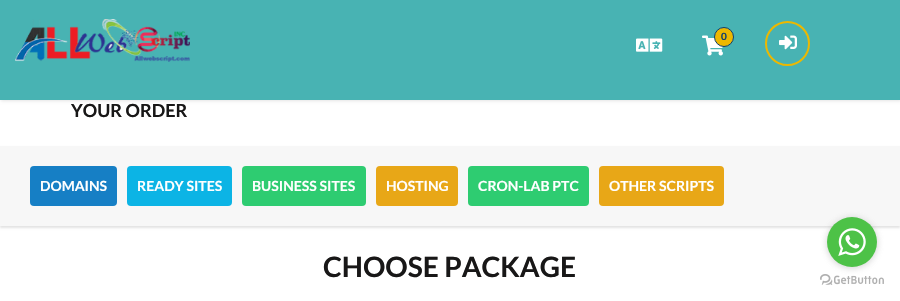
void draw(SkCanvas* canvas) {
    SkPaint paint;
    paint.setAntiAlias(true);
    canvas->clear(0xFFFFFFFF);
    paint.setColor(0x1A000000);
    paint.setMaskFilter(SkMaskFilter::MakeBlur(kNormal_SkBlurStyle, 1.5f));
    canvas->drawRect(SkRect::MakeXYWH(1, 1, 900, 100), paint);
    paint.setMaskFilter(nullptr);
    paint.setColor(0xFF48B3B3);
    canvas->drawRect(SkRect::MakeXYWH(0, 0, 900, 100), paint);
    canvas->drawImageRect(SkImages::DeferredFromEncodedData(SkData::MakeFromFileName("img1.png")), SkRect::MakeXYWH(15, 19, 175, 43), SkSamplingOptions());
    canvas->drawImageRect(SkImages::DeferredFromEncodedData(SkData::MakeFromFileName("img2.png")), SkRect::MakeXYWH(702, 35, 21, 21), SkSamplingOptions());
    paint.setColor(0xFFEDB800);
    canvas->drawCircle(724, 37, 9.5f, paint);
    paint.setStyle(SkPaint::kStroke_Style);
    paint.setStrokeWidth(1);
    paint.setColor(0xFF0E3E6E);
    canvas->drawCircle(724, 37, 9.5f, paint);
    SkFont font1(fontMgr->matchFamilyStyle("Lato", SkFontStyle::Bold()), 10);
    font1.setSubpixel(true);
    paint.setStyle(SkPaint::kFill_Style);
    canvas->drawString("0", 721, 40, font1, paint);
    paint.setStyle(SkPaint::kStroke_Style);
    paint.setStrokeWidth(2);
    paint.setColor(0xFFEDB800);
    canvas->drawCircle(787.5f, 43.5f, 21.5f, paint);
    canvas->drawImageRect(SkImages::DeferredFromEncodedData(SkData::MakeFromFileName("img3.png")), SkRect::MakeXYWH(779, 35, 18, 15), SkSamplingOptions());
    canvas->drawImageRect(SkImages::DeferredFromEncodedData(SkData::MakeFromFileName("img4.png")), SkRect::MakeXYWH(636, 38, 27, 14), SkSamplingOptions());
    SkFont font2(fontMgr->matchFamilyStyle("Lato", SkFontStyle::Bold()), 18);
    font2.setSubpixel(true);
    paint.setStyle(SkPaint::kFill_Style);
    paint.setColor(0xFF181717);
    canvas->drawString("YOUR ORDER", 71, 117, font2, paint);
    paint.setColor(0xFFE4E4E4);
    paint.setMaskFilter(SkMaskFilter::MakeBlur(kNormal_SkBlurStyle, 1));
    canvas->drawRect(SkRect::MakeXYWH(0, 148, 900, 80), paint);
    paint.setMaskFilter(nullptr);
    paint.setColor(0xFFF7F7F7);
    canvas->drawRect(SkRect::MakeXYWH(0, 146, 900, 80), paint);
    paint.setColor(0xFF167FC5);
    canvas->drawRoundRect(SkRect::MakeXYWH(30, 166, 87, 40), 4, 4, paint);
    SkFont font3(fontMgr->matchFamilyStyle("Lato", SkFontStyle::Bold()), 14);
    font3.setSubpixel(true);
    paint.setColor(0xFFFFFFFF);
    canvas->drawString("DOMAINS", 40, 191, font3, paint);
    paint.setColor(0xFF0CB4E5);
    canvas->drawRoundRect(SkRect::MakeXYWH(127, 166, 105, 40), 4, 4, paint);
    paint.setColor(0xFFFFFFFF);
    canvas->drawString("READY SITES", 137, 191, font3, paint);
    paint.setColor(0xFF2ECC71);
    canvas->drawRoundRect(SkRect::MakeXYWH(242, 166, 124, 40), 4, 4, paint);
    paint.setColor(0xFFFFFFFF);
    canvas->drawString("BUSINESS SITES", 252, 191, font3, paint);
    paint.setColor(0xFFE8A717);
    canvas->drawRoundRect(SkRect::MakeXYWH(376, 166, 82, 40), 4, 4, paint);
    paint.setColor(0xFFFFFFFF);
    canvas->drawString("HOSTING", 386, 191, font3, paint);
    paint.setColor(0xFF2ECC71);
    canvas->drawRoundRect(SkRect::MakeXYWH(468, 166, 121, 40), 4, 4, paint);
    paint.setColor(0xFFFFFFFF);
    canvas->drawString("CRON-LAB PTC", 478, 191, font3, paint);
    paint.setColor(0xFFE8A717);
    canvas->drawRoundRect(SkRect::MakeXYWH(599, 166, 125, 40), 4, 4, paint);
    paint.setColor(0xFFFFFFFF);
    canvas->drawString("OTHER SCRIPTS", 609, 191, font3, paint);
    SkFont font4(fontMgr->matchFamilyStyle("Lato", SkFontStyle::Bold()), 28);
    font4.setSubpixel(true);
    paint.setColor(0xFF181717);
    canvas->drawString("CHOOSE PACKAGE", 323, 277, font4, paint);
    canvas->drawImageRect(SkImages::DeferredFromEncodedData(SkData::MakeFromFileName("img6.png")), SkRect::MakeXYWH(820, 274, 64, 11), SkSamplingOptions());
    paint.setColor(0x66888888);
    paint.setMaskFilter(SkMaskFilter::MakeBlur(kNormal_SkBlurStyle, 3.5f));
    canvas->drawRoundRect(SkRect::MakeXYWH(827, 218, 50, 50), 25, 25, paint);
    paint.setMaskFilter(nullptr);
    paint.setColor(0xFF4DC247);
    canvas->drawCircle(852, 242, 25, paint);
    canvas->drawImageRect(SkImages::DeferredFromEncodedData(SkData::MakeFromFileName("img5.png")), SkRect::MakeXYWH(838, 228, 28, 28), SkSamplingOptions());
}
